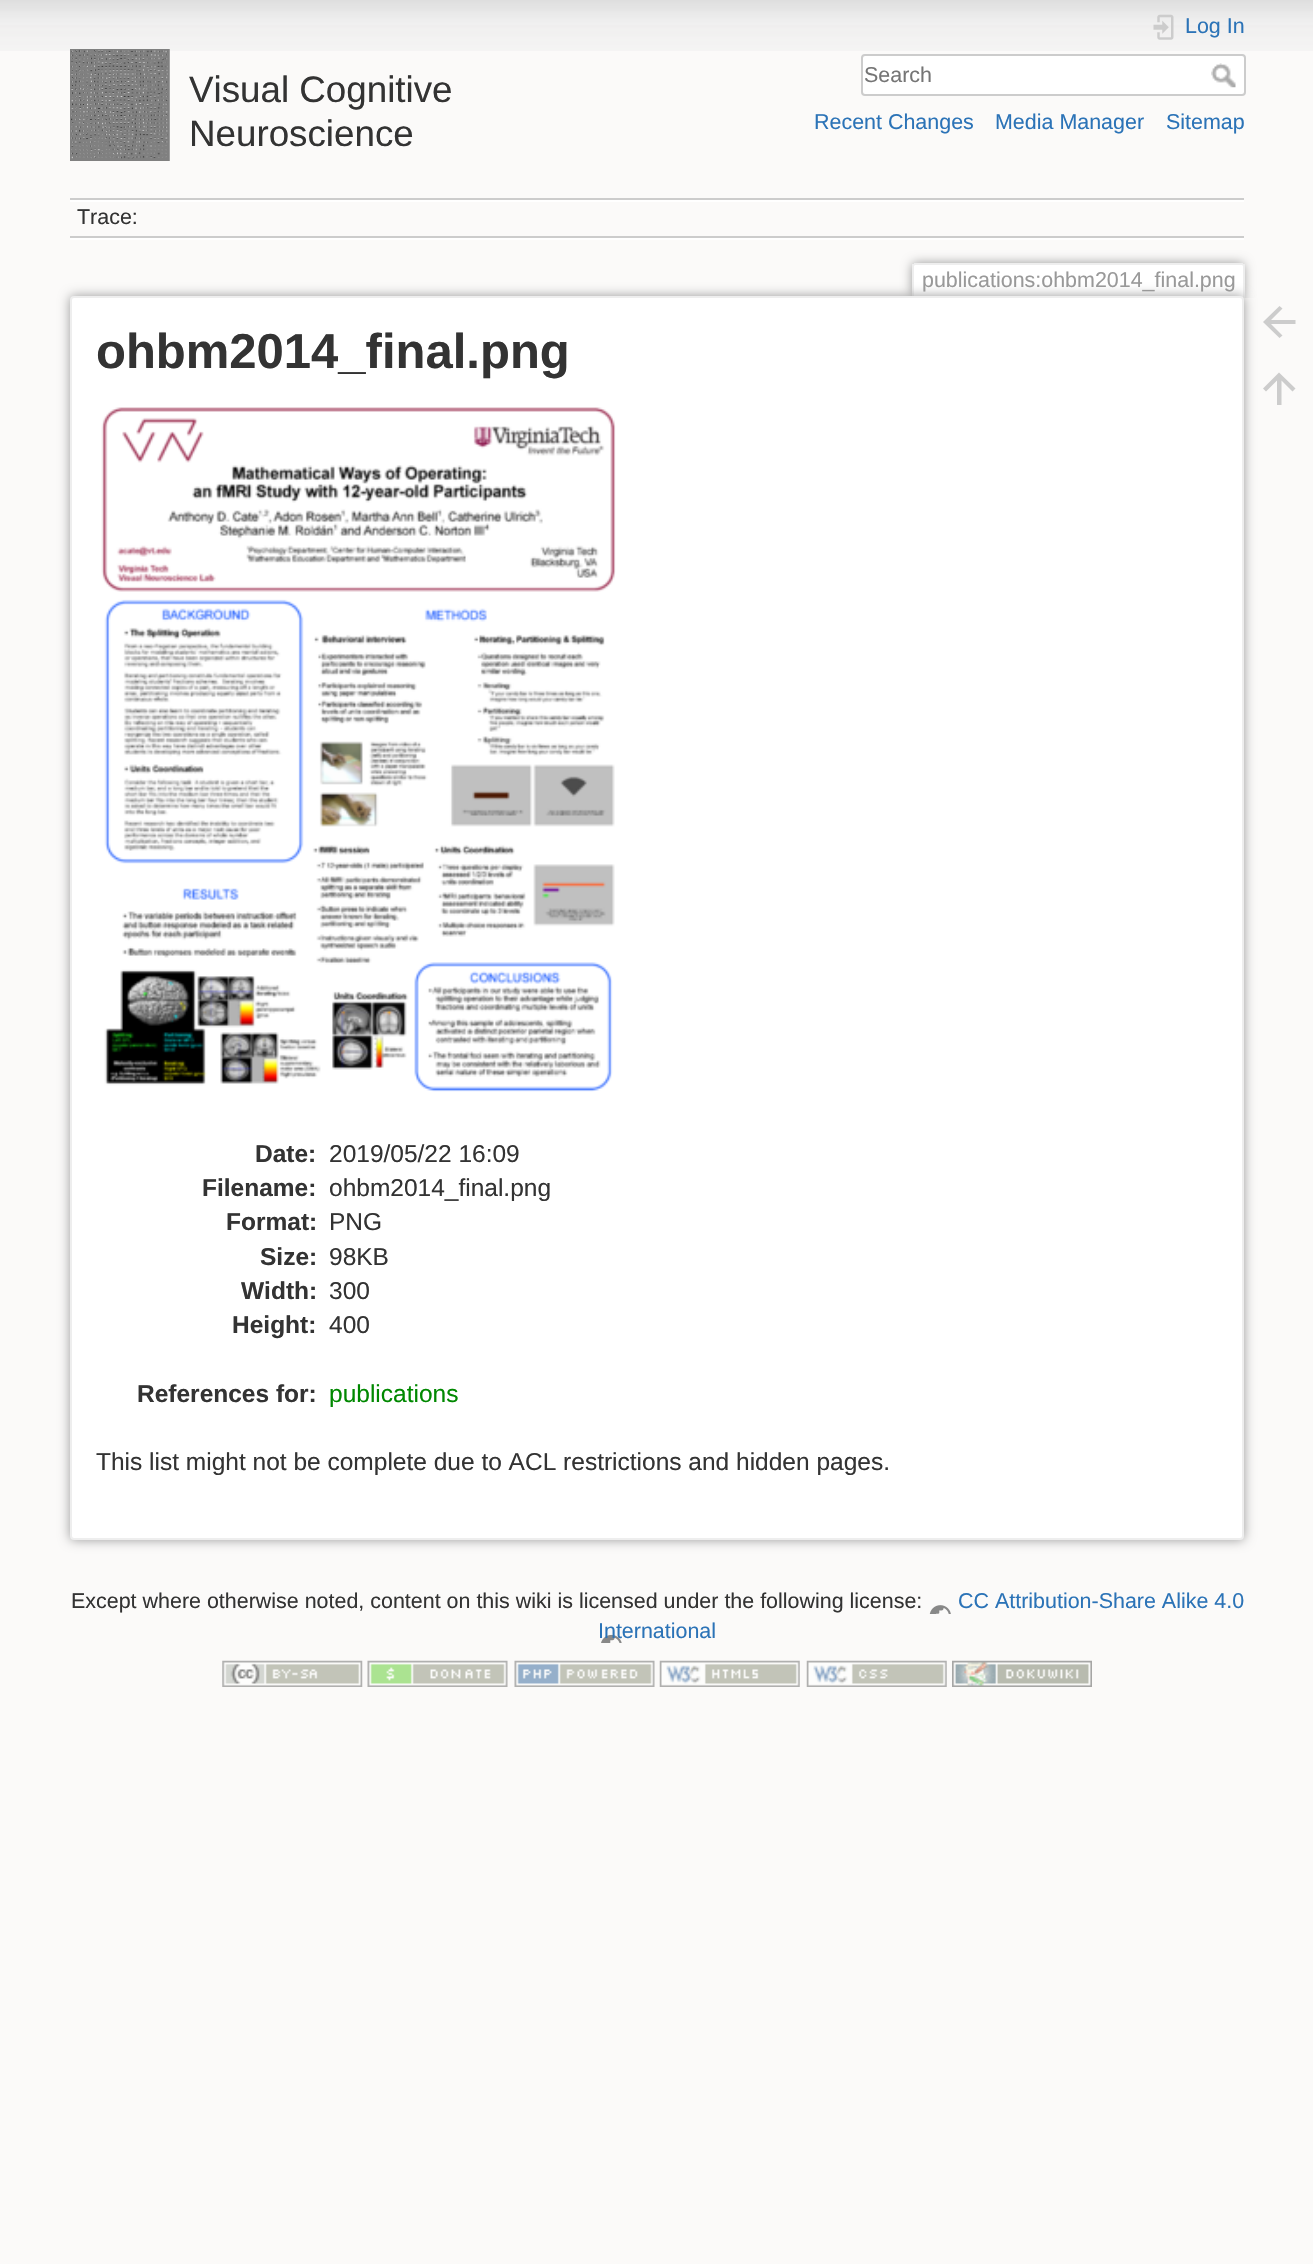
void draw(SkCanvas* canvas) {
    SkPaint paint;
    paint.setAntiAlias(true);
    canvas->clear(0xFFFBFAF9);
    canvas->drawImageRect(SkImages::DeferredFromEncodedData(SkData::MakeFromFileName("img1.png")), SkRect::MakeXYWH(0, 0, 1313, 51), SkSamplingOptions());
    canvas->drawImageRect(SkImages::DeferredFromEncodedData(SkData::MakeFromFileName("img2.png")), SkRect::MakeXYWH(70, 49, 100, 112), SkSamplingOptions());
    SkFont font1(fontMgr->matchFamilyStyle("Liberation Sans", SkFontStyle::Normal()), 36.75f);
    font1.setSubpixel(true);
    paint.setColor(0xFF333333);
    canvas->drawString("Visual Cognitive", 189, 102, font1, paint);
    canvas->drawString("Neuroscience", 189, 146, font1, paint);
    canvas->drawImageRect(SkImages::DeferredFromEncodedData(SkData::MakeFromFileName("img3.png")), SkRect::MakeXYWH(1153, 14, 21, 26), SkSamplingOptions());
    SkFont font2(fontMgr->matchFamilyStyle("Liberation Sans", SkFontStyle::Normal()), 21.45f);
    font2.setSubpixel(true);
    paint.setColor(0xFF2B73B7);
    canvas->drawString("Log In", 1185, 33, font2, paint);
    paint.setColor(0xFFFFFFFF);
    canvas->drawRoundRect(SkRect::MakeXYWH(862, 55, 383, 40), 3, 3, paint);
    paint.setStyle(SkPaint::kStroke_Style);
    paint.setStrokeWidth(2);
    paint.setColor(0xFFCCCCCC);
    canvas->drawRoundRect(SkRect::MakeXYWH(862, 55, 383, 40), 3, 3, paint);
    paint.setStyle(SkPaint::kFill_Style);
    paint.setColor(0xFF757575);
    canvas->drawString("Search", 864, 82, font2, paint);
    canvas->drawImageRect(SkImages::DeferredFromEncodedData(SkData::MakeFromFileName("img4.png")), SkRect::MakeXYWH(1211, 63, 25, 25), SkSamplingOptions());
    paint.setColor(0xFF2B73B7);
    canvas->drawString("Recent Changes", 814, 129, font2, paint);
    canvas->drawString("Media Manager", 995, 129, font2, paint);
    canvas->drawString("Sitemap", 1166, 129, font2, paint);
    paint.setColor(0xFFCCCCCC);
    canvas->drawRect(SkRect::MakeXYWH(70, 198, 1174, 2), paint);
    paint.setColor(0xFFFFFFFF);
    canvas->drawRect(SkRect::MakeXYWH(70, 238, 1174, 2), paint);
    canvas->drawRect(SkRect::MakeXYWH(70, 200, 1174, 2), paint);
    paint.setColor(0xFFCCCCCC);
    canvas->drawRect(SkRect::MakeXYWH(70, 236, 1174, 2), paint);
    paint.setColor(0xFF333333);
    canvas->drawString("Trace:", 77, 224, font2, paint);
    canvas->save();
    canvas->clipRect(SkRect::MakeXYWH(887, 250, 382, 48));
    paint.setColor(0xFF999999);
    paint.setMaskFilter(SkMaskFilter::MakeBlur(kNormal_SkBlurStyle, 5.5f));
    canvas->drawRoundRect(SkRect::MakeXYWH(912, 263, 332, 35), 4, 4, paint);
    paint.setMaskFilter(nullptr);
    canvas->restore();
    paint.setColor(0xFFFFFFFF);
    canvas->drawPath(SkPathBuilder().moveTo(916, 264).lineTo(1241, 264).cubicTo(1242, 264, 1243, 265, 1243, 266).lineTo(1243, 298).lineTo(914, 298).lineTo(914, 266).cubicTo(914, 265, 915, 264, 916, 264).close().detach(), paint);
    paint.setColor(0xFFEEEEEE);
    canvas->drawRect(SkRect::MakeXYWH(914, 263, 329, 2), paint);
    canvas->drawRect(SkRect::MakeXYWH(1243, 264, 2, 34), paint);
    canvas->drawRect(SkRect::MakeXYWH(912, 264, 2, 34), paint);
    paint.setColor(0xFF999999);
    canvas->drawString("publications:ohbm2014_final.png", 922, 287, font2, paint);
    paint.setMaskFilter(SkMaskFilter::MakeBlur(kNormal_SkBlurStyle, 6));
    canvas->drawRoundRect(SkRect::MakeXYWH(70, 296, 1174, 1244), 4, 4, paint);
    paint.setMaskFilter(nullptr);
    paint.setColor(0xFFFFFFFF);
    canvas->drawRoundRect(SkRect::MakeXYWH(71, 297, 1172, 1242), 3, 3, paint);
    paint.setStyle(SkPaint::kStroke_Style);
    paint.setColor(0xFFEEEEEE);
    canvas->drawRoundRect(SkRect::MakeXYWH(71, 297, 1172, 1242), 3, 3, paint);
    SkFont font3(fontMgr->matchFamilyStyle("Liberation Sans", SkFontStyle::Bold()), 49);
    font3.setSubpixel(true);
    paint.setStyle(SkPaint::kFill_Style);
    paint.setColor(0xFF333333);
    canvas->drawString("ohbm2014_final.png", 96, 368, font3, paint);
    canvas->drawImageRect(SkImages::DeferredFromEncodedData(SkData::MakeFromFileName("img5.png")), SkRect::MakeXYWH(101, 407, 515, 685), SkSamplingOptions());
    SkFont font4(fontMgr->matchFamilyStyle("Liberation Sans", SkFontStyle::Bold()), 24.5f);
    font4.setSubpixel(true);
    canvas->drawString("Date:", 255, 1162, font4, paint);
    SkFont font5(fontMgr->matchFamilyStyle("Liberation Sans", SkFontStyle::Normal()), 24.5f);
    font5.setSubpixel(true);
    canvas->drawString("2019/05/22 16:09", 329, 1162, font5, paint);
    canvas->drawString("Filename:", 202, 1196, font4, paint);
    canvas->drawString("ohbm2014_final.png", 329, 1196, font5, paint);
    canvas->drawString("Format:", 226, 1230, font4, paint);
    canvas->drawString("PNG", 329, 1230, font5, paint);
    canvas->drawString("Size:", 260, 1265, font4, paint);
    canvas->drawString("98KB", 329, 1265, font5, paint);
    canvas->drawString("Width:", 241, 1299, font4, paint);
    canvas->drawString("300", 329, 1299, font5, paint);
    canvas->drawString("Height:", 232, 1333, font4, paint);
    canvas->drawString("400", 329, 1333, font5, paint);
    canvas->drawString("References for:", 137, 1402, font4, paint);
    paint.setColor(0xFF008800);
    canvas->drawString("publications", 329, 1402, font5, paint);
    paint.setColor(0xFF333333);
    canvas->drawString("This list might not be complete due to ACL restrictions and hidden pages.", 96, 1470, font5, paint);
    paint.setColor(0xFFCCCCCC);
    canvas->drawPath(SkPathBuilder().moveTo(1295.5f, 320).lineTo(1295.5f, 324).lineTo(1271, 324).lineTo(1282.5f, 335.5f).lineTo(1279.5f, 338).lineTo(1263, 322).lineTo(1279.5f, 306).lineTo(1282.5f, 308.5f).lineTo(1271, 320).close().detach(), paint);
    canvas->drawPath(SkPathBuilder().moveTo(1281.5f, 405).lineTo(1277, 405).lineTo(1277, 380.5f).lineTo(1266, 391.5f).lineTo(1263, 388.5f).lineTo(1279, 372.5f).lineTo(1295.5f, 388.5f).lineTo(1292.5f, 391.5f).lineTo(1281.5f, 380.5f).close().detach(), paint);
    paint.setColor(0xFF333333);
    canvas->drawString("Except where otherwise noted, content on this wiki is licensed under the following license:", 71, 1608, font2, paint);
    paint.setColor(0xFF2B73B7);
    canvas->drawString("CC Attribution-Share Alike 4.0", 958, 1608, font2, paint);
    canvas->drawImageRect(SkImages::DeferredFromEncodedData(SkData::MakeFromFileName("img6.png")), SkRect::MakeXYWH(601, 1605, 350, 38), SkSamplingOptions());
    canvas->drawString("International", 598, 1638, font2, paint);
    canvas->drawImageRect(SkImages::DeferredFromEncodedData(SkData::MakeFromFileName("img7.png")), SkRect::MakeXYWH(222, 1660, 141, 27), SkSamplingOptions());
    canvas->drawImageRect(SkImages::DeferredFromEncodedData(SkData::MakeFromFileName("img8.png")), SkRect::MakeXYWH(367, 1660, 141, 27), SkSamplingOptions());
    canvas->drawImageRect(SkImages::DeferredFromEncodedData(SkData::MakeFromFileName("img9.png")), SkRect::MakeXYWH(514, 1660, 141, 27), SkSamplingOptions());
    canvas->drawImageRect(SkImages::DeferredFromEncodedData(SkData::MakeFromFileName("img10.png")), SkRect::MakeXYWH(659, 1660, 141, 27), SkSamplingOptions());
    canvas->drawImageRect(SkImages::DeferredFromEncodedData(SkData::MakeFromFileName("img11.png")), SkRect::MakeXYWH(806, 1660, 141, 27), SkSamplingOptions());
    canvas->drawImageRect(SkImages::DeferredFromEncodedData(SkData::MakeFromFileName("img12.png")), SkRect::MakeXYWH(952, 1660, 140, 27), SkSamplingOptions());
}
